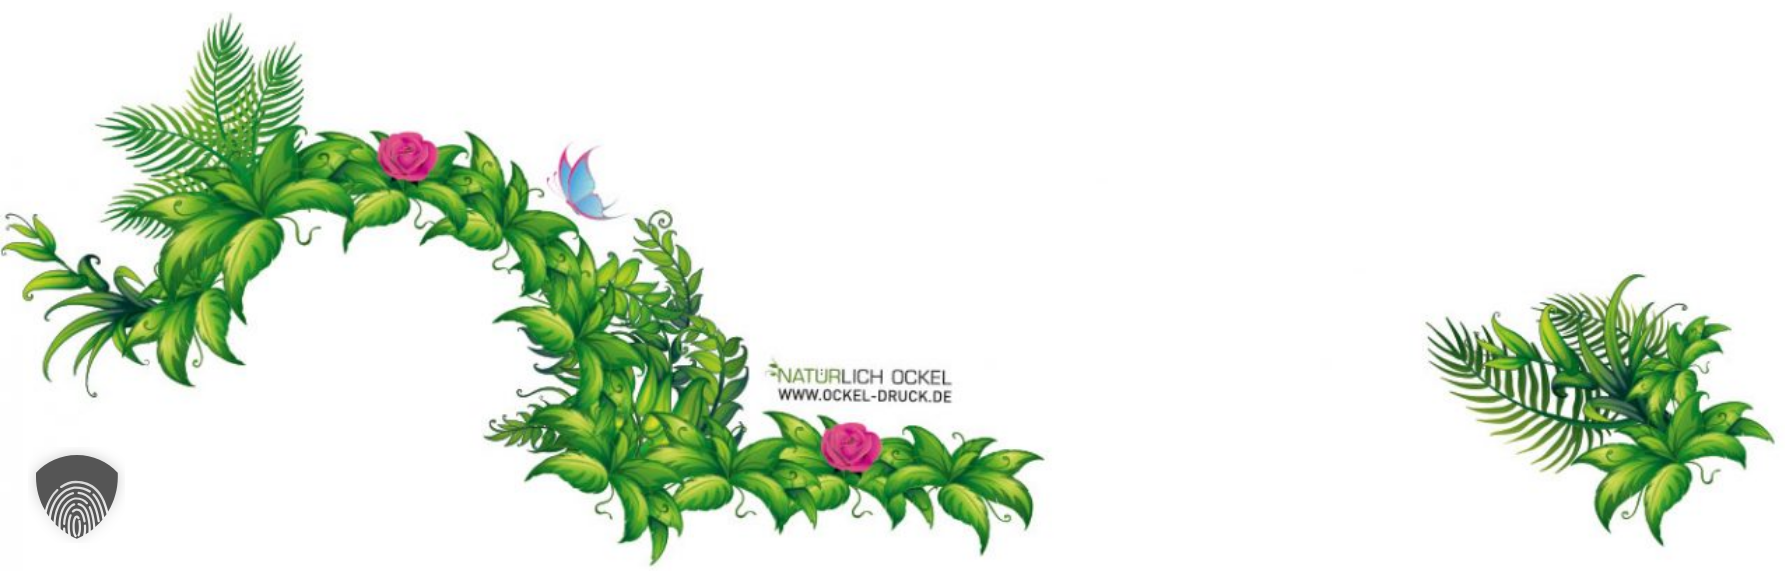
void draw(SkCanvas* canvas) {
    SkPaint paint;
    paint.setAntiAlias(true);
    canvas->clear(0xFFFFFFFF);
    canvas->drawImageRect(SkImages::DeferredFromEncodedData(SkData::MakeFromFileName("img1.png")), SkRect::MakeXYWH(0, 11, 1785, 560), SkSamplingOptions());
    canvas->drawImageRect(SkImages::DeferredFromEncodedData(SkData::MakeFromFileName("img2.png")), SkRect::MakeXYWH(28, 447, 97, 96), SkSamplingOptions());
}
